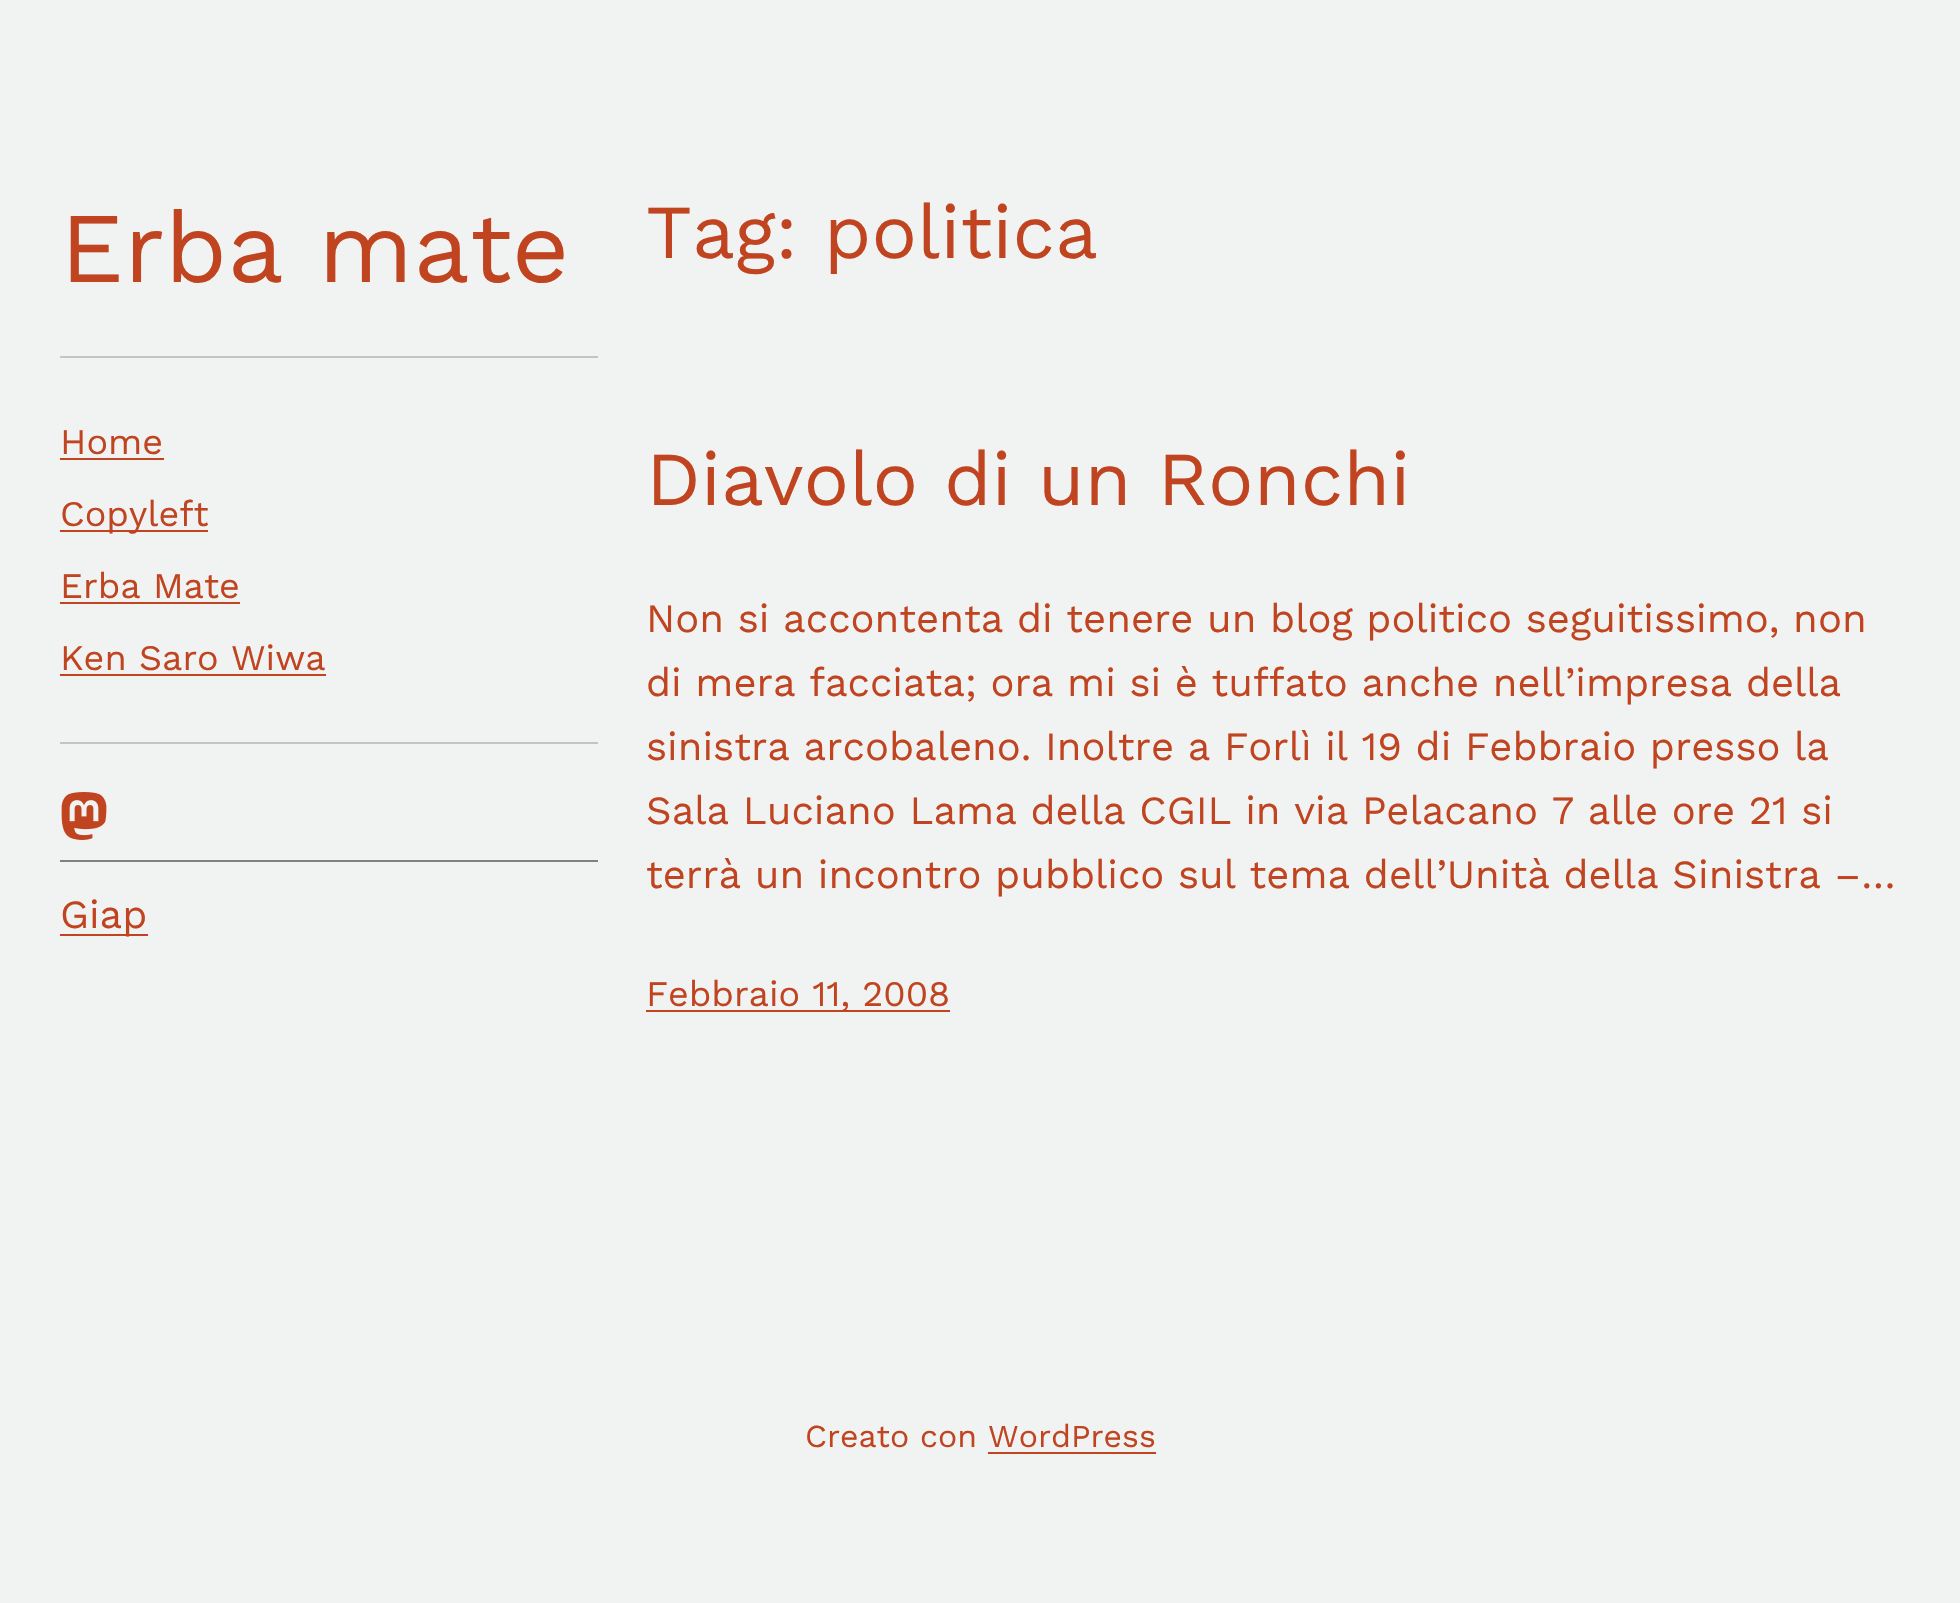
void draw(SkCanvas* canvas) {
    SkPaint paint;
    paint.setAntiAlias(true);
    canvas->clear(0xFFF1F2F2);
    SkFont font1(fontMgr->matchFamilyStyle("Work Sans", SkFontStyle::Normal()), 100);
    font1.setSubpixel(true);
    paint.setColor(0xFFC14420);
    canvas->drawString("Erba mate", 60, 282, font1, paint);
    paint.setColor(0xFFC4C4C4);
    canvas->drawRect(SkRect::MakeXYWH(60, 356, 538, 2), paint);
    SkFont font2(fontMgr->matchFamilyStyle("Work Sans", SkFontStyle::Normal()), 36);
    font2.setSubpixel(true);
    paint.setColor(0xFFC14420);
    canvas->drawString("Home", 60, 454, font2, paint);
    canvas->drawRect(SkRect::MakeXYWH(60, 458, 104, 2), paint);
    canvas->drawRect(SkRect::MakeXYWH(60, 530, 148, 2), paint);
    canvas->drawString("Copyleft", 60, 526, font2, paint);
    canvas->drawString("Erba Mate", 60, 598, font2, paint);
    canvas->drawRect(SkRect::MakeXYWH(60, 602, 180, 2), paint);
    canvas->drawString("Ken Saro Wiwa", 60, 670, font2, paint);
    canvas->drawRect(SkRect::MakeXYWH(60, 674, 266, 2), paint);
    paint.setColor(0xFFC4C4C4);
    canvas->drawRect(SkRect::MakeXYWH(60, 742, 538, 2), paint);
    canvas->drawImageRect(SkImages::DeferredFromEncodedData(SkData::MakeFromFileName("img1.png")), SkRect::MakeXYWH(61, 792, 46, 48), SkSamplingOptions());
    paint.setColor(0xFF808080);
    canvas->drawRect(SkRect::MakeXYWH(60, 860, 538, 2), paint);
    paint.setColor(0xFFC14420);
    canvas->drawRect(SkRect::MakeXYWH(60, 934, 88, 2), paint);
    SkFont font3(fontMgr->matchFamilyStyle("Work Sans", SkFontStyle::Normal()), 40);
    font3.setSubpixel(true);
    canvas->drawString("Giap", 60, 928, font3, paint);
    SkFont font4(fontMgr->matchFamilyStyle("Work Sans", SkFontStyle::Normal()), 76);
    font4.setSubpixel(true);
    canvas->drawString("Tag: politica", 646, 258, font4, paint);
    canvas->drawString("Diavolo di un Ronchi", 646, 505, font4, paint);
    canvas->drawString("Non si accontenta di tenere un blog politico seguitissimo, non", 646, 632, font3, paint);
    canvas->drawString("di mera facciata; ora mi si è tuffato anche nell’impresa della", 646, 696, font3, paint);
    canvas->drawString("sinistra arcobaleno. Inoltre a Forlì il 19 di Febbraio presso la", 646, 760, font3, paint);
    canvas->drawString("Sala Luciano Lama della CGIL in via Pelacano 7 alle ore 21 si", 646, 824, font3, paint);
    canvas->drawString("terrà un incontro pubblico sul tema dell’Unità della Sinistra –…", 646, 888, font3, paint);
    canvas->drawRect(SkRect::MakeXYWH(646, 1010, 304, 2), paint);
    canvas->drawString("Febbraio 11, 2008", 646, 1006, font2, paint);
    SkFont font5(fontMgr->matchFamilyStyle("Work Sans", SkFontStyle::Normal()), 32);
    font5.setSubpixel(true);
    canvas->drawString("Creato con WordPress", 805, 1447, font5, paint);
    canvas->drawRect(SkRect::MakeXYWH(988, 1452, 168, 2), paint);
}
